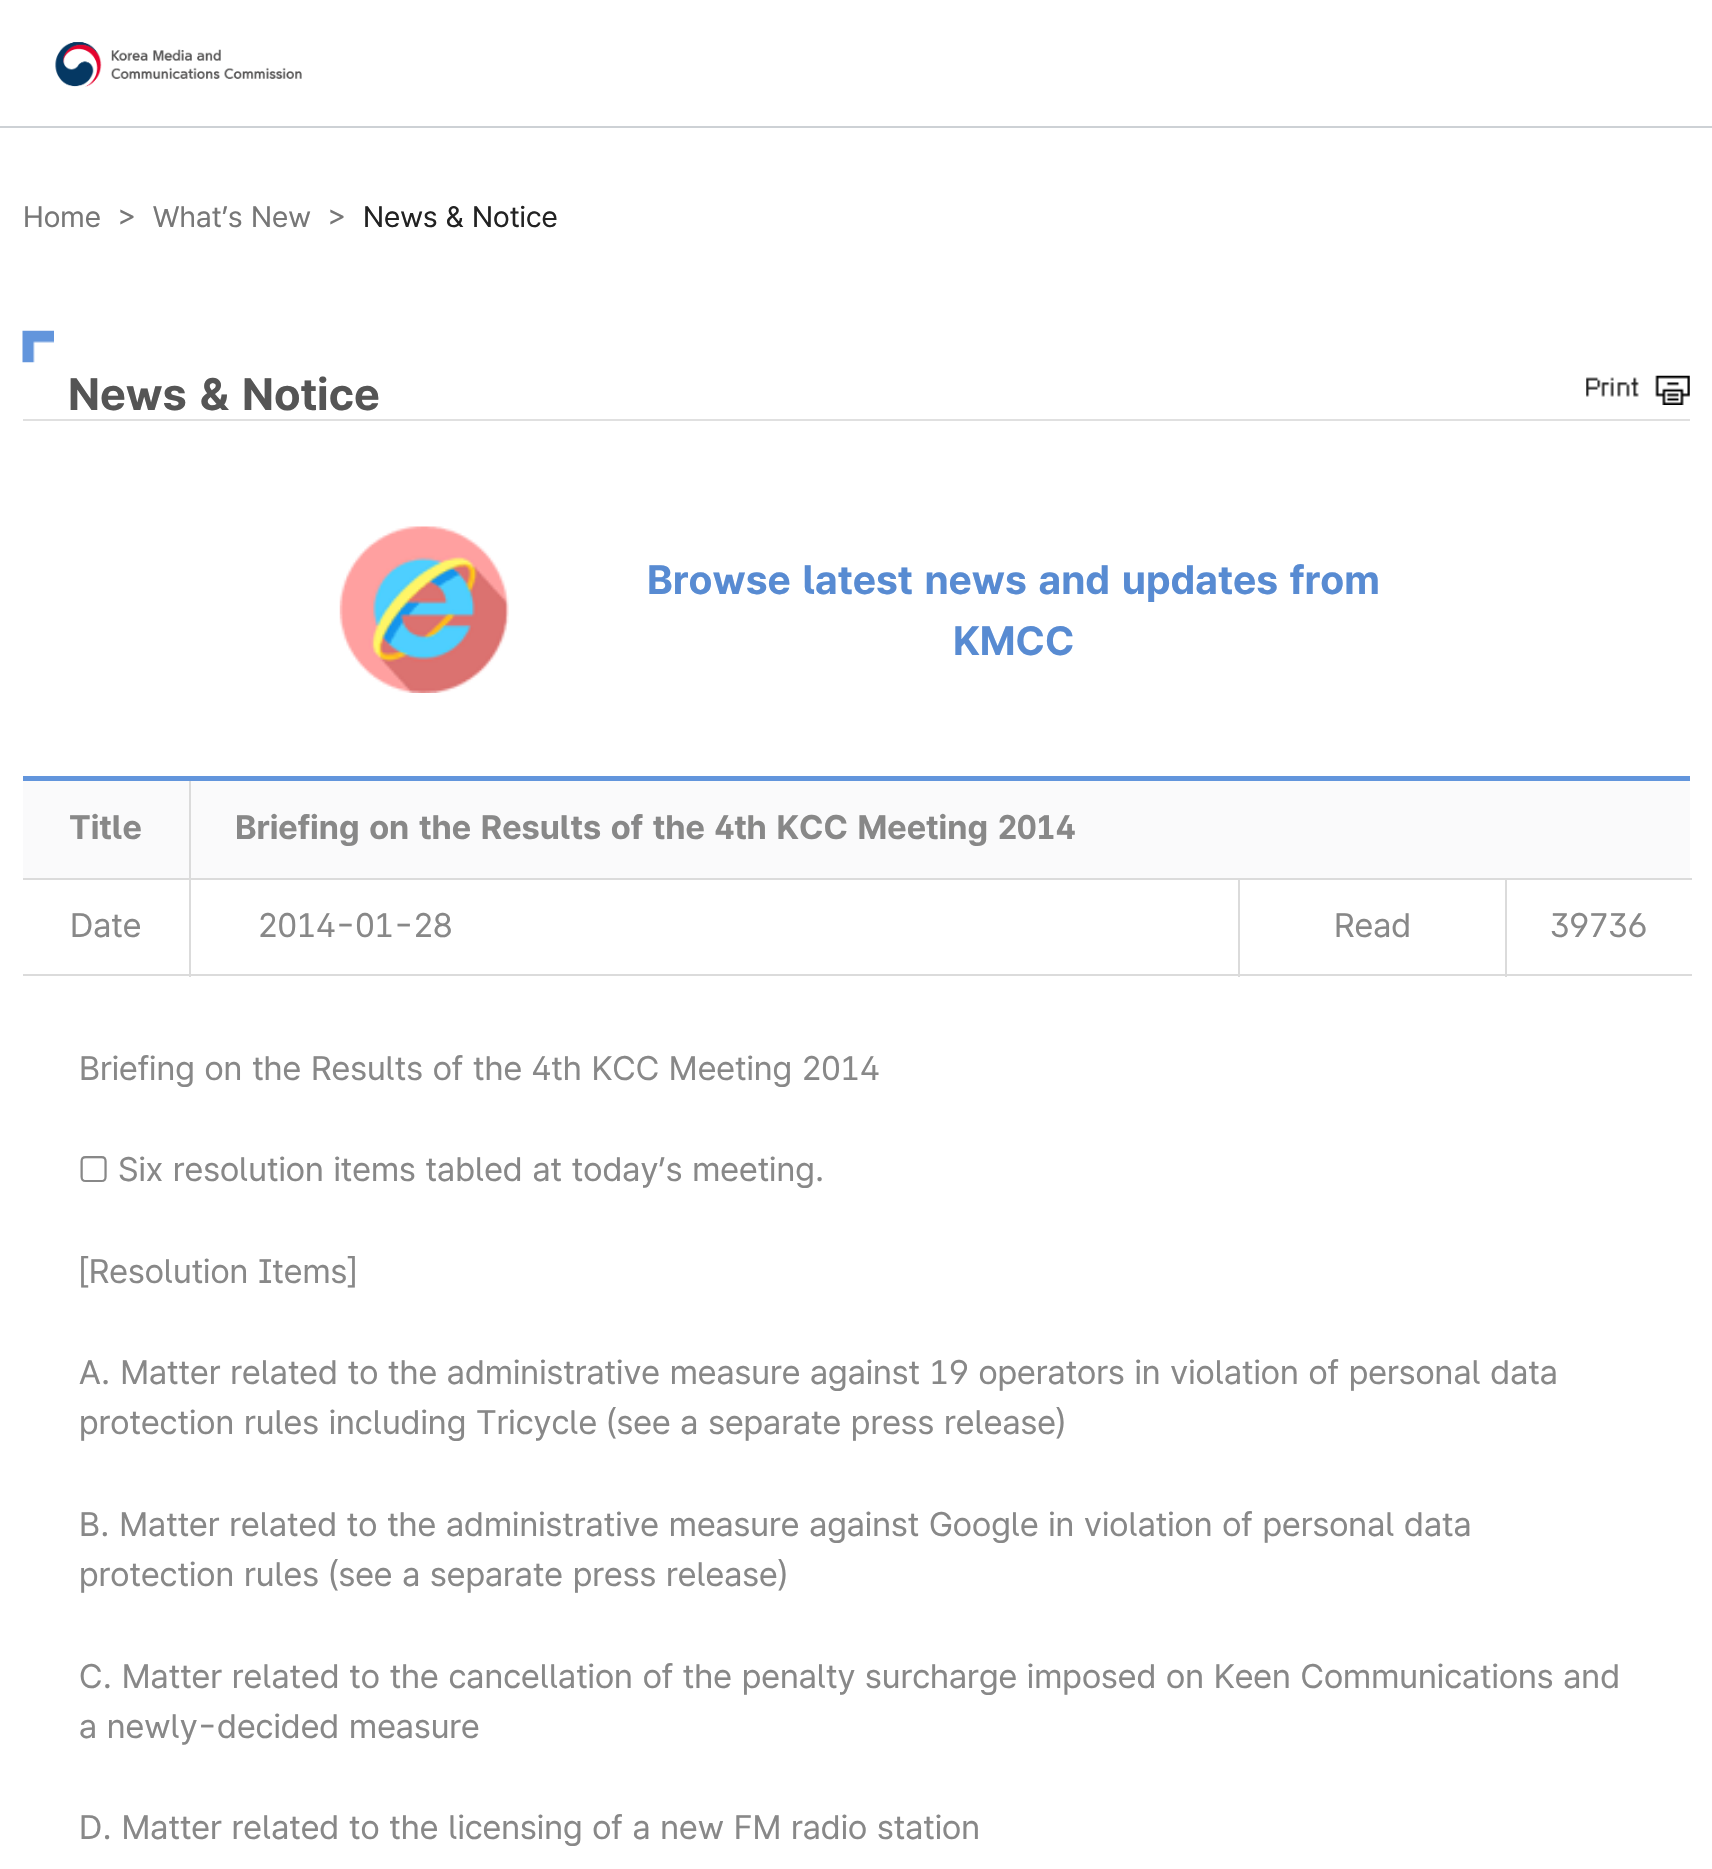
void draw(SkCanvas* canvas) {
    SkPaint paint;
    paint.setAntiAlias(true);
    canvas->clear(0xFFFFFFFF);
    paint.setColor(0xFFCDD1D5);
    canvas->drawRect(SkRect::MakeXYWH(0, 126, 1712, 2), paint);
    canvas->drawImageRect(SkImages::DeferredFromEncodedData(SkData::MakeFromFileName("img1.png")), SkRect::MakeXYWH(55, 42, 247, 45), SkSamplingOptions());
    SkFont font1(fontMgr->matchFamilyStyle("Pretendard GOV", SkFontStyle::Normal()), 29.25f);
    font1.setSubpixel(true);
    paint.setColor(0xFF777777);
    canvas->drawString("Home  >  What’s New  >", 23, 227, font1, paint);
    paint.setColor(0xFF222222);
    canvas->drawString("News & Notice", 363, 227, font1, paint);
    canvas->drawImageRect(SkImages::DeferredFromEncodedData(SkData::MakeFromFileName("img2.png")), SkRect::MakeXYWH(22, 330, 32, 33), SkSamplingOptions());
    paint.setColor(0xFFE0E0E0);
    canvas->drawRect(SkRect::MakeXYWH(23, 419, 1667, 2), paint);
    SkFont font2(fontMgr->matchFamilyStyle("Pretendard GOV", SkFontStyle::Bold()), 45);
    font2.setSubpixel(true);
    paint.setColor(0xFF555555);
    canvas->drawString("News & Notice", 68, 410, font2, paint);
    canvas->drawImageRect(SkImages::DeferredFromEncodedData(SkData::MakeFromFileName("img3.png")), SkRect::MakeXYWH(1586, 375, 104, 30), SkSamplingOptions());
    canvas->drawImageRect(SkImages::DeferredFromEncodedData(SkData::MakeFromFileName("img4.png")), SkRect::MakeXYWH(339, 526, 170, 167), SkSamplingOptions());
    SkFont font3(fontMgr->matchFamilyStyle("Pretendard GOV", SkFontStyle::Bold()), 40.5f);
    font3.setSubpixel(true);
    paint.setColor(0xFF588BD2);
    canvas->drawString("Browse latest news and updates from", 647, 594, font3, paint);
    canvas->drawString("KMCC", 953, 655, font3, paint);
    paint.setColor(0xFFDBDBDB);
    canvas->drawRect(SkRect::MakeXYWH(1505, 974, 187, 2), paint);
    canvas->drawRect(SkRect::MakeXYWH(1505, 878, 2, 99), paint);
    canvas->drawRect(SkRect::MakeXYWH(1238, 974, 270, 2), paint);
    canvas->drawRect(SkRect::MakeXYWH(1238, 878, 2, 99), paint);
    canvas->drawRect(SkRect::MakeXYWH(189, 974, 1051, 2), paint);
    canvas->drawRect(SkRect::MakeXYWH(189, 878, 2, 99), paint);
    canvas->drawRect(SkRect::MakeXYWH(189, 878, 1503, 2), paint);
    canvas->drawRect(SkRect::MakeXYWH(189, 779, 2, 101), paint);
    paint.setColor(0xFF6295DC);
    canvas->drawRect(SkRect::MakeXYWH(23, 776, 1667, 5), paint);
    paint.setColor(0xFFFAFAFB);
    canvas->drawRect(SkRect::MakeXYWH(23, 781, 166, 97), paint);
    paint.setColor(0xFFDBDBDB);
    canvas->drawRect(SkRect::MakeXYWH(23, 878, 168, 2), paint);
    SkFont font4(fontMgr->matchFamilyStyle("Pretendard GOV", SkFontStyle::Bold()), 33.75f);
    font4.setSubpixel(true);
    paint.setColor(0xFF888888);
    canvas->drawString("Title", 69, 839, font4, paint);
    paint.setColor(0xFFFAFAFB);
    canvas->drawRect(SkRect::MakeXYWH(191, 781, 1499, 97), paint);
    paint.setColor(0xFF888888);
    canvas->drawString("Briefing on the Results of the 4th KCC Meeting 2014", 235, 839, font4, paint);
    paint.setColor(0xFFDBDBDB);
    canvas->drawRect(SkRect::MakeXYWH(23, 974, 168, 2), paint);
    SkFont font5(fontMgr->matchFamilyStyle("Pretendard GOV", SkFontStyle::Normal()), 33.75f);
    font5.setSubpixel(true);
    paint.setColor(0xFF888888);
    canvas->drawString("Date", 70, 937, font5, paint);
    canvas->drawString("2014-01-28", 258, 937, font5, paint);
    canvas->drawString("Read", 1334, 937, font5, paint);
    canvas->drawString("39736", 1550, 937, font5, paint);
    canvas->drawString("Briefing on the Results of the 4th KCC Meeting 2014", 79, 1080, font5, paint);
    canvas->drawString("□ Six resolution items tabled at today’s meeting.", 79, 1181, font5, paint);
    canvas->drawString("[Resolution Items]", 79, 1283, font5, paint);
    canvas->drawString("A. Matter related to the administrative measure against 19 operators in violation of personal data", 79, 1384, font5, paint);
    canvas->drawString("protection rules including Tricycle (see a separate press release)", 79, 1434, font5, paint);
    canvas->drawString("B. Matter related to the administrative measure against Google in violation of personal data", 79, 1536, font5, paint);
    canvas->drawString("protection rules (see a separate press release)", 79, 1586, font5, paint);
    canvas->drawString("C. Matter related to the cancellation of the penalty surcharge imposed on Keen Communications and", 79, 1688, font5, paint);
    canvas->drawString("a newly-decided measure", 79, 1738, font5, paint);
    canvas->drawString("D. Matter related to the licensing of a new FM radio station", 79, 1839, font5, paint);
}
